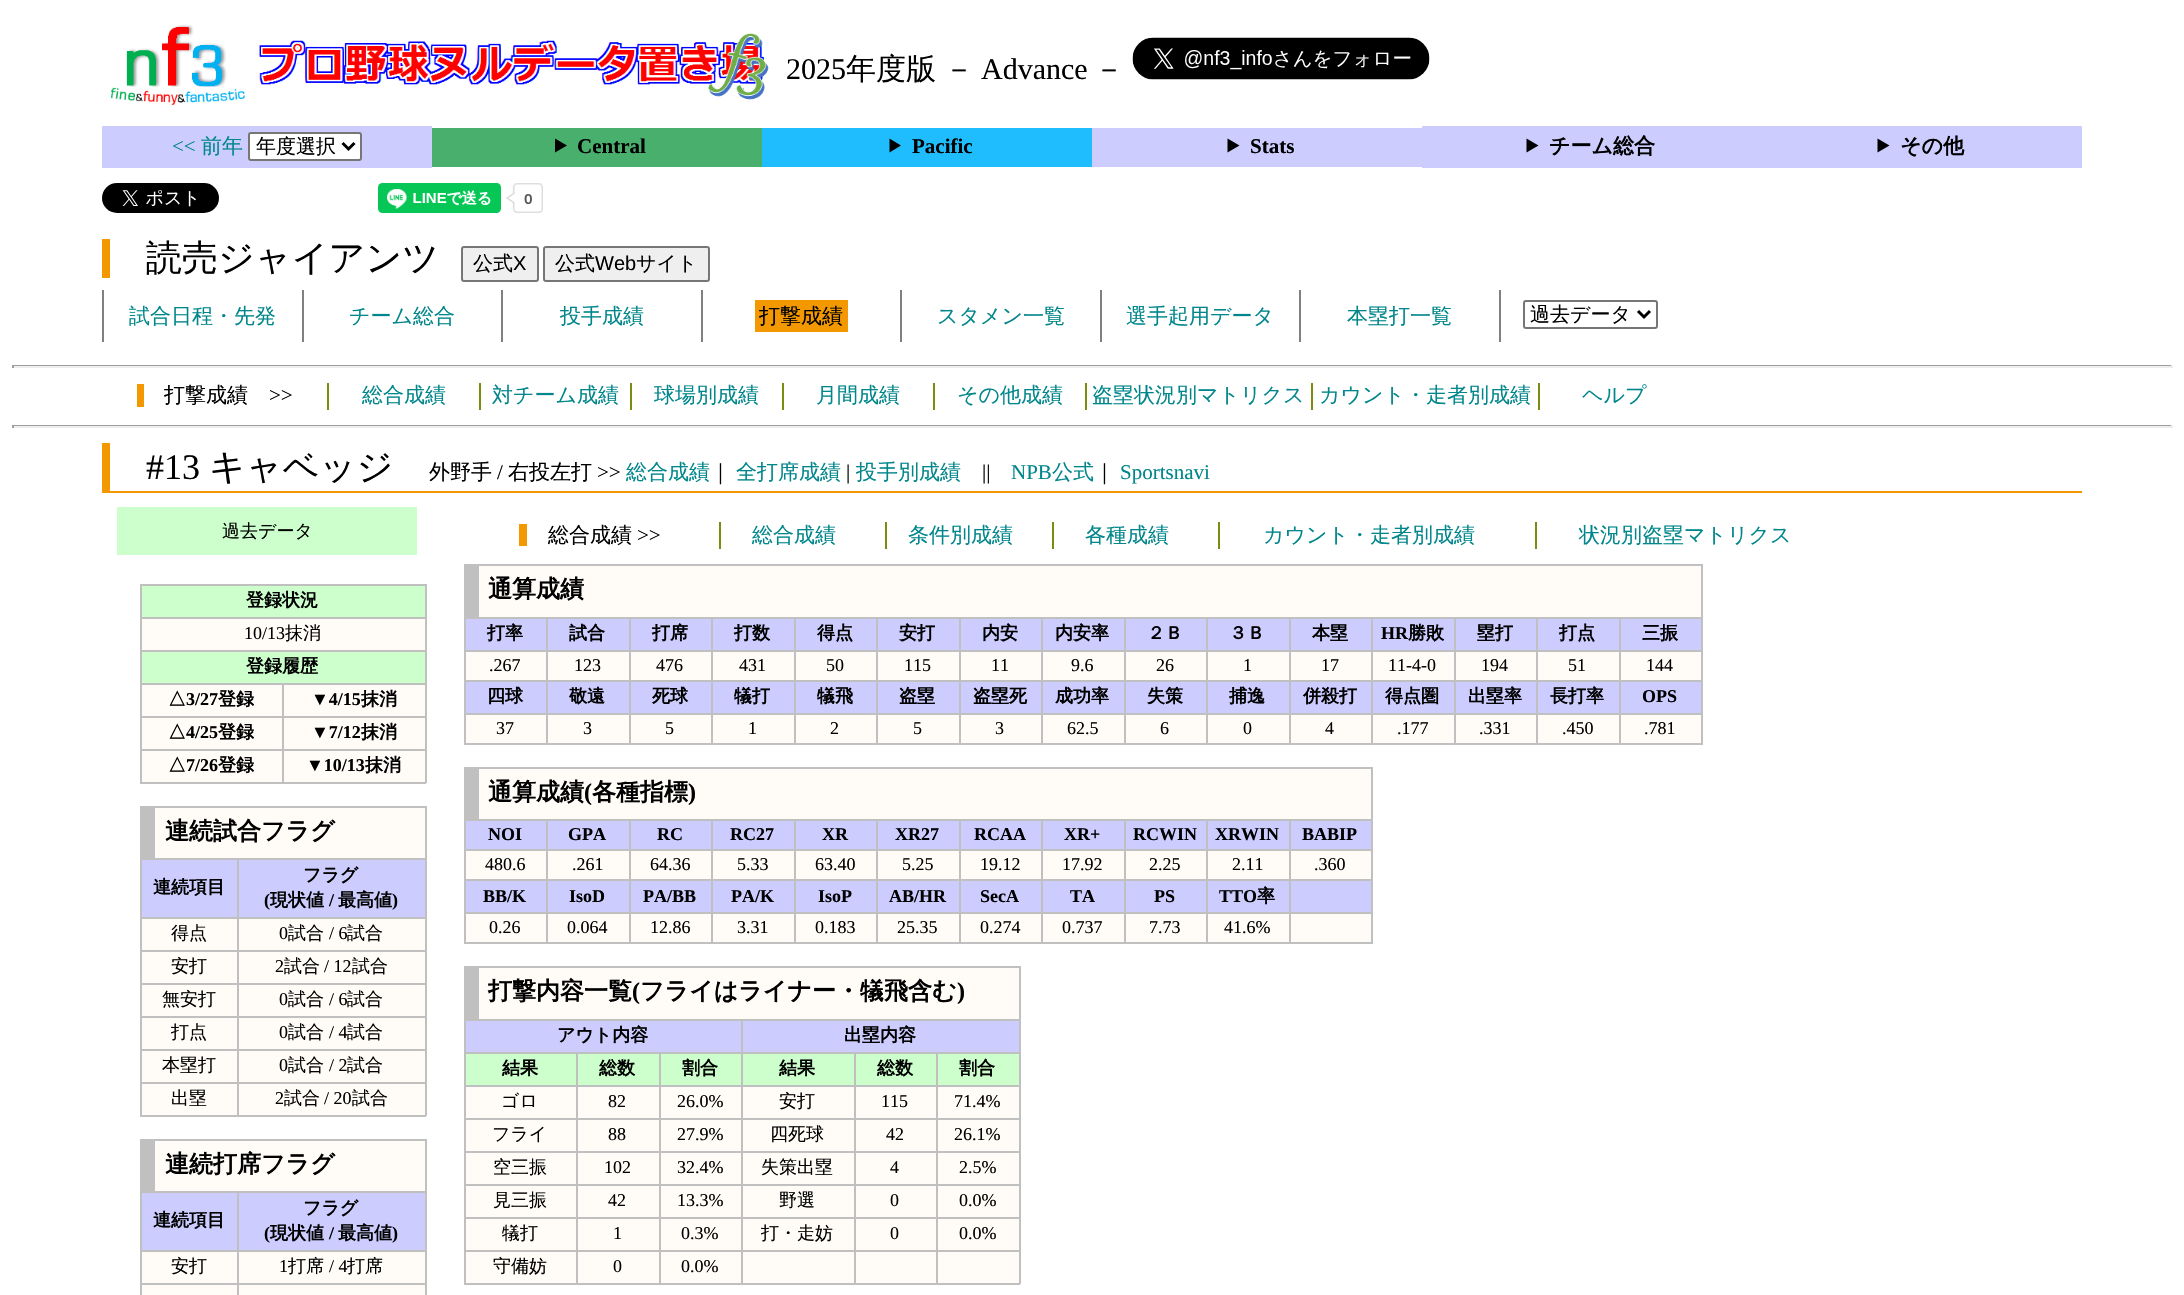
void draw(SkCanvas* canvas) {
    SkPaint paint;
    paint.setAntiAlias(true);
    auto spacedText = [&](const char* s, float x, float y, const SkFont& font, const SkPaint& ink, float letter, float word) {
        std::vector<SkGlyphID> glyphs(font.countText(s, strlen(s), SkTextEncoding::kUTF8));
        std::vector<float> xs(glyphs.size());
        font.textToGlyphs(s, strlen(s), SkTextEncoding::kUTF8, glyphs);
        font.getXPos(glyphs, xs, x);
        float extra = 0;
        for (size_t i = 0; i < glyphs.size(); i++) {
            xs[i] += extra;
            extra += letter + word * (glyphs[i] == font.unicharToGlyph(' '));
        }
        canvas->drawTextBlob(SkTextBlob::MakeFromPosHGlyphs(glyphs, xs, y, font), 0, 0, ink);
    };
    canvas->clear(0xFFFFFFFF);
    canvas->drawImageRect(SkImages::DeferredFromEncodedData(SkData::MakeFromFileName("img1.png")), SkRect::MakeXYWH(110, 24, 136, 81), SkSamplingOptions());
    canvas->drawImageRect(SkImages::DeferredFromEncodedData(SkData::MakeFromFileName("img2.png")), SkRect::MakeXYWH(259, 33, 510, 67), SkSamplingOptions());
    SkFont font1(fontMgr->matchFamilyStyle("Liberation Serif", SkFontStyle::Normal()), 30);
    font1.setSubpixel(true);
    paint.setColor(0xFF000000);
    canvas->drawString("2025", 786, 79, font1, paint);
    SkFont font2(fontMgr->matchFamilyStyle("WenQuanYi Zen Hei", SkFontStyle(500, SkFontStyle::kNormal_Width, SkFontStyle::kUpright_Slant)), 30);
    font2.setSubpixel(true);
    spacedText("年度版 －", 846, 79, font2, paint, 0, -1);
    canvas->drawString("Advance", 981, 79, font1, paint);
    canvas->drawString("－", 1094, 79, font2, paint);
    canvas->drawImageRect(SkImages::DeferredFromEncodedData(SkData::MakeFromFileName("img3.png")), SkRect::MakeXYWH(1132, 37, 298, 43), SkSamplingOptions());
    paint.setColor(0xFFCCCCFF);
    canvas->drawRect(SkRect::MakeXYWH(102, 126, 330, 42), paint);
    SkFont font3(fontMgr->matchFamilyStyle("Liberation Serif", SkFontStyle::Normal()), 21);
    font3.setSubpixel(true);
    paint.setColor(0xFF00868B);
    canvas->drawString("<<", 172, 153, font3, paint);
    SkFont font4(fontMgr->matchFamilyStyle("WenQuanYi Zen Hei", SkFontStyle(500, SkFontStyle::kNormal_Width, SkFontStyle::kUpright_Slant)), 21);
    font4.setSubpixel(true);
    canvas->drawString("前年", 201, 153, font4, paint);
    paint.setColor(0xFFFFFFFF);
    canvas->drawRoundRect(SkRect::MakeXYWH(249, 133, 112, 27), 2, 2, paint);
    paint.setStyle(SkPaint::kStroke_Style);
    paint.setStrokeWidth(2);
    paint.setColor(0xFF767676);
    canvas->drawRoundRect(SkRect::MakeXYWH(249, 133, 112, 27), 2, 2, paint);
    paint.setStrokeWidth(3);
    paint.setColor(0xFF000000);
    canvas->drawPath(SkPathBuilder().moveTo(342.5f, 143).lineTo(348.5f, 149).lineTo(354.5f, 143).detach(), paint);
    SkFont font5(fontMgr->matchFamilyStyle("WenQuanYi Zen Hei", SkFontStyle(500, SkFontStyle::kNormal_Width, SkFontStyle::kUpright_Slant)), 20);
    font5.setSubpixel(true);
    paint.setStyle(SkPaint::kFill_Style);
    canvas->drawString("年度選択", 256, 153, font5, paint);
    paint.setColor(0xFF49AF6D);
    canvas->drawRect(SkRect::MakeXYWH(432, 128, 330, 39), paint);
    paint.setColor(0xFF000000);
    canvas->drawPath(SkPathBuilder().moveTo(555, 138.5f).lineTo(567, 145.5f).lineTo(555, 152.5f).close().detach(), paint);
    SkFont font6(fontMgr->matchFamilyStyle("Liberation Serif", SkFontStyle::Bold()), 21);
    font6.setSubpixel(true);
    canvas->drawString("Central", 577, 153, font6, paint);
    paint.setColor(0xFF20BDFE);
    canvas->drawRect(SkRect::MakeXYWH(762, 128, 330, 39), paint);
    paint.setColor(0xFF000000);
    canvas->drawPath(SkPathBuilder().moveTo(889.5f, 138.5f).lineTo(901, 145.5f).lineTo(889.5f, 152.5f).close().detach(), paint);
    canvas->drawString("Pacific", 912, 153, font6, paint);
    paint.setColor(0xFFCCCCFF);
    canvas->drawRect(SkRect::MakeXYWH(1092, 128, 330, 39), paint);
    paint.setColor(0xFF000000);
    canvas->drawPath(SkPathBuilder().moveTo(1227.5f, 138.5f).lineTo(1239.5f, 145.5f).lineTo(1227.5f, 152.5f).close().detach(), paint);
    canvas->drawString("Stats", 1250, 153, font6, paint);
    paint.setColor(0xFFCCCCFF);
    canvas->drawRect(SkRect::MakeXYWH(1422, 126, 660, 42), paint);
    paint.setColor(0xFF000000);
    canvas->drawPath(SkPathBuilder().moveTo(1526.5f, 138.5f).lineTo(1538.5f, 145.5f).lineTo(1526.5f, 152.5f).close().detach(), paint);
    SkFont font7(fontMgr->matchFamilyStyle("WenQuanYi Zen Hei", SkFontStyle::Bold()), 21);
    font7.setSubpixel(true);
    canvas->drawString("チーム総合", 1549, 153, font7, paint);
    canvas->drawPath(SkPathBuilder().moveTo(1877.5f, 138.5f).lineTo(1889.5f, 145.5f).lineTo(1877.5f, 152.5f).close().detach(), paint);
    canvas->drawString("その他", 1900, 153, font7, paint);
    canvas->drawImageRect(SkImages::DeferredFromEncodedData(SkData::MakeFromFileName("img4.png")), SkRect::MakeXYWH(102, 183, 117, 30), SkSamplingOptions());
    canvas->drawImageRect(SkImages::DeferredFromEncodedData(SkData::MakeFromFileName("img5.png")), SkRect::MakeXYWH(378, 183, 165, 30), SkSamplingOptions());
    SkFont font8(fontMgr->matchFamilyStyle("WenQuanYi Zen Hei", SkFontStyle(500, SkFontStyle::kNormal_Width, SkFontStyle::kUpright_Slant)), 36);
    font8.setSubpixel(true);
    canvas->drawString("読売ジャイアンツ", 146, 270, font8, paint);
    paint.setColor(0xFFF39800);
    canvas->drawRect(SkRect::MakeXYWH(102, 239, 8, 39), paint);
    paint.setColor(0xFFEFEFEF);
    canvas->drawRoundRect(SkRect::MakeXYWH(462, 247, 76, 34), 2, 2, paint);
    paint.setStyle(SkPaint::kStroke_Style);
    paint.setStrokeWidth(2);
    paint.setColor(0xFF767676);
    canvas->drawRoundRect(SkRect::MakeXYWH(462, 247, 76, 34), 2, 2, paint);
    paint.setStyle(SkPaint::kFill_Style);
    paint.setColor(0xFF000000);
    canvas->drawString("公式", 473, 270, font5, paint);
    SkFont font9(fontMgr->matchFamilyStyle("Liberation Sans", SkFontStyle::Normal()), 20);
    font9.setSubpixel(true);
    canvas->drawString("X", 513, 270, font9, paint);
    paint.setColor(0xFFEFEFEF);
    canvas->drawRoundRect(SkRect::MakeXYWH(544, 247, 165, 34), 2, 2, paint);
    paint.setStyle(SkPaint::kStroke_Style);
    paint.setColor(0xFF767676);
    canvas->drawRoundRect(SkRect::MakeXYWH(544, 247, 165, 34), 2, 2, paint);
    paint.setStyle(SkPaint::kFill_Style);
    paint.setColor(0xFF000000);
    canvas->drawString("公式", 555, 270, font5, paint);
    canvas->drawString("Web", 595, 270, font9, paint);
    canvas->drawString("サイト", 636, 270, font5, paint);
    paint.setColor(0xFF808080);
    canvas->drawRect(SkRect::MakeXYWH(102, 290, 2, 52), paint);
    paint.setColor(0xFF00868B);
    canvas->drawString("試合日程・先発", 129, 323, font4, paint);
    paint.setColor(0xFF808080);
    canvas->drawRect(SkRect::MakeXYWH(302, 290, 2, 52), paint);
    paint.setColor(0xFF00868B);
    canvas->drawString("チーム総合", 349, 323, font4, paint);
    paint.setColor(0xFF808080);
    canvas->drawRect(SkRect::MakeXYWH(501, 290, 2, 52), paint);
    paint.setColor(0xFF00868B);
    canvas->drawString("投手成績", 560, 323, font4, paint);
    paint.setColor(0xFF808080);
    canvas->drawRect(SkRect::MakeXYWH(701, 290, 2, 52), paint);
    paint.setColor(0xFFF39800);
    canvas->drawRect(SkRect::MakeXYWH(755, 300, 93, 32), paint);
    paint.setColor(0xFF000000);
    canvas->drawString("打撃成績", 759, 323, font4, paint);
    paint.setColor(0xFF808080);
    canvas->drawRect(SkRect::MakeXYWH(900, 290, 2, 52), paint);
    paint.setColor(0xFF00868B);
    canvas->drawString("スタメン一覧", 937, 323, font4, paint);
    paint.setColor(0xFF808080);
    canvas->drawRect(SkRect::MakeXYWH(1100, 290, 2, 52), paint);
    paint.setColor(0xFF00868B);
    canvas->drawString("選手起用データ", 1126, 323, font4, paint);
    paint.setColor(0xFF808080);
    canvas->drawRect(SkRect::MakeXYWH(1299, 290, 2, 52), paint);
    paint.setColor(0xFF00868B);
    canvas->drawString("本塁打一覧", 1347, 323, font4, paint);
    paint.setColor(0xFF808080);
    canvas->drawRect(SkRect::MakeXYWH(1499, 290, 2, 52), paint);
    paint.setStyle(SkPaint::kStroke_Style);
    paint.setColor(0xFF767676);
    canvas->drawRoundRect(SkRect::MakeXYWH(1524, 301, 133, 27), 2, 2, paint);
    paint.setStrokeWidth(3);
    paint.setColor(0xFF000000);
    canvas->drawPath(SkPathBuilder().moveTo(1638, 311).lineTo(1644, 317).lineTo(1650, 311).detach(), paint);
    paint.setStyle(SkPaint::kFill_Style);
    canvas->drawString("過去データ", 1530, 321, font5, paint);
    paint.setColor(0xFF9F9F9F);
    canvas->drawRect(SkRect::MakeXYWH(12, 365, 2160, 1), paint);
    paint.setColor(0xFFEEEEEE);
    canvas->drawRect(SkRect::MakeXYWH(2171, 365, 2, 3), paint);
    canvas->drawRect(SkRect::MakeXYWH(12, 366, 2160, 2), paint);
    paint.setColor(0xFF9F9F9F);
    canvas->drawRect(SkRect::MakeXYWH(12, 365, 2, 3), paint);
    paint.setColor(0xFF000000);
    canvas->drawString("打撃成績", 164, 402, font4, paint);
    paint.setColor(0xFFF39800);
    canvas->drawRect(SkRect::MakeXYWH(137, 384, 7, 23), paint);
    paint.setColor(0xFF000000);
    canvas->drawString(">>", 269, 402, font3, paint);
    paint.setColor(0xFF7C8C0E);
    canvas->drawRect(SkRect::MakeXYWH(327, 383, 2, 27), paint);
    paint.setColor(0xFF00868B);
    canvas->drawString("総合成績", 362, 402, font4, paint);
    paint.setColor(0xFF7C8C0E);
    canvas->drawRect(SkRect::MakeXYWH(479, 383, 2, 27), paint);
    paint.setColor(0xFF00868B);
    canvas->drawString("対チーム成績", 492, 402, font4, paint);
    paint.setColor(0xFF7C8C0E);
    canvas->drawRect(SkRect::MakeXYWH(630, 383, 2, 27), paint);
    paint.setColor(0xFF00868B);
    canvas->drawString("球場別成績", 654, 402, font4, paint);
    paint.setColor(0xFF7C8C0E);
    canvas->drawRect(SkRect::MakeXYWH(782, 383, 2, 27), paint);
    paint.setColor(0xFF00868B);
    canvas->drawString("月間成績", 816, 402, font4, paint);
    paint.setColor(0xFF7C8C0E);
    canvas->drawRect(SkRect::MakeXYWH(933, 383, 2, 27), paint);
    paint.setColor(0xFF00868B);
    canvas->drawString("その他成績", 957, 402, font4, paint);
    paint.setColor(0xFF7C8C0E);
    canvas->drawRect(SkRect::MakeXYWH(1085, 383, 2, 27), paint);
    paint.setColor(0xFF00868B);
    canvas->drawString("盗塁状況別マトリクス", 1092, 402, font4, paint);
    paint.setColor(0xFF7C8C0E);
    canvas->drawRect(SkRect::MakeXYWH(1311, 383, 2, 27), paint);
    paint.setColor(0xFF00868B);
    canvas->drawString("カウント・走者別成績", 1319, 402, font4, paint);
    paint.setColor(0xFF7C8C0E);
    canvas->drawRect(SkRect::MakeXYWH(1538, 383, 2, 27), paint);
    paint.setColor(0xFF00868B);
    canvas->drawString("ヘルプ", 1582, 402, font4, paint);
    paint.setColor(0xFF9F9F9F);
    canvas->drawRect(SkRect::MakeXYWH(12, 425, 2160, 1), paint);
    paint.setColor(0xFFEEEEEE);
    canvas->drawRect(SkRect::MakeXYWH(2171, 425, 2, 3), paint);
    canvas->drawRect(SkRect::MakeXYWH(12, 426, 2160, 2), paint);
    paint.setColor(0xFF9F9F9F);
    canvas->drawRect(SkRect::MakeXYWH(12, 425, 2, 3), paint);
    paint.setColor(0xFFF39800);
    canvas->drawRect(SkRect::MakeXYWH(102, 491, 1980, 2), paint);
    canvas->drawRect(SkRect::MakeXYWH(102, 443, 8, 49), paint);
    SkFont font10(fontMgr->matchFamilyStyle("Liberation Serif", SkFontStyle::Normal()), 36);
    font10.setSubpixel(true);
    paint.setColor(0xFF000000);
    canvas->drawString("#13", 146, 479, font10, paint);
    canvas->drawString("キャベッジ", 209, 479, font8, paint);
    canvas->drawString("外野手", 429, 479, font4, paint);
    canvas->drawString("/", 497, 479, font3, paint);
    canvas->drawString("右投左打", 508, 479, font4, paint);
    canvas->drawString(">>", 597, 479, font3, paint);
    paint.setColor(0xFF00868B);
    canvas->drawString("総合成績", 626, 479, font4, paint);
    paint.setColor(0xFF000000);
    canvas->drawString("｜", 710, 479, font4, paint);
    paint.setColor(0xFF00868B);
    canvas->drawString("全打席成績", 736, 479, font4, paint);
    paint.setColor(0xFF000000);
    canvas->drawString("|", 846, 479, font3, paint);
    paint.setColor(0xFF00868B);
    canvas->drawString("投手別成績", 856, 479, font4, paint);
    paint.setColor(0xFF000000);
    canvas->drawString("||", 982, 479, font3, paint);
    paint.setColor(0xFF00868B);
    canvas->drawString("NPB", 1011, 479, font3, paint);
    canvas->drawString("公式", 1052, 479, font4, paint);
    paint.setColor(0xFF000000);
    canvas->drawString("｜", 1094, 479, font4, paint);
    paint.setColor(0xFF00868B);
    canvas->drawString("Sportsnavi", 1120, 479, font3, paint);
    paint.setColor(0xFFCCFFCC);
    canvas->drawRect(SkRect::MakeXYWH(117, 507, 300, 48), paint);
    SkFont font11(fontMgr->matchFamilyStyle("WenQuanYi Zen Hei", SkFontStyle(500, SkFontStyle::kNormal_Width, SkFontStyle::kUpright_Slant)), 18);
    font11.setSubpixel(true);
    paint.setColor(0xFF000000);
    canvas->drawString("過去データ", 222, 537, font11, paint);
    paint.setColor(0xFFFFFCF8);
    canvas->drawRect(SkRect::MakeXYWH(142, 619, 283, 163), paint);
    paint.setColor(0xFFC0C0C0);
    canvas->drawRect(SkRect::MakeXYWH(140, 584, 286, 2), paint);
    canvas->drawRect(SkRect::MakeXYWH(425, 584, 2, 199), paint);
    canvas->drawRect(SkRect::MakeXYWH(140, 782, 286, 2), paint);
    canvas->drawRect(SkRect::MakeXYWH(140, 584, 2, 199), paint);
    paint.setColor(0xFFCCFFCC);
    canvas->drawRect(SkRect::MakeXYWH(142, 586, 283, 31), paint);
    SkFont font12(fontMgr->matchFamilyStyle("WenQuanYi Zen Hei", SkFontStyle::Bold()), 18);
    font12.setSubpixel(true);
    paint.setColor(0xFF000000);
    canvas->drawString("登録状況", 246, 606, font12, paint);
    paint.setColor(0xFFC0C0C0);
    canvas->drawRect(SkRect::MakeXYWH(140, 617, 286, 2), paint);
    SkFont font13(fontMgr->matchFamilyStyle("Liberation Serif", SkFontStyle::Normal()), 18);
    font13.setSubpixel(true);
    paint.setColor(0xFF000000);
    canvas->drawString("10/13", 244, 639, font13, paint);
    canvas->drawString("抹消", 285, 639, font11, paint);
    paint.setColor(0xFFCCFFCC);
    canvas->drawRect(SkRect::MakeXYWH(142, 652, 283, 31), paint);
    paint.setColor(0xFFC0C0C0);
    canvas->drawRect(SkRect::MakeXYWH(140, 650, 286, 2), paint);
    paint.setColor(0xFF000000);
    canvas->drawString("登録履歴", 246, 672, font12, paint);
    paint.setColor(0xFFC0C0C0);
    canvas->drawRect(SkRect::MakeXYWH(282, 683, 144, 2), paint);
    canvas->drawRect(SkRect::MakeXYWH(282, 716, 144, 2), paint);
    canvas->drawRect(SkRect::MakeXYWH(282, 749, 144, 2), paint);
    canvas->drawRect(SkRect::MakeXYWH(282, 749, 2, 34), paint);
    canvas->drawRect(SkRect::MakeXYWH(140, 749, 144, 2), paint);
    canvas->drawRect(SkRect::MakeXYWH(282, 716, 2, 34), paint);
    canvas->drawRect(SkRect::MakeXYWH(140, 716, 144, 2), paint);
    canvas->drawRect(SkRect::MakeXYWH(282, 683, 2, 34), paint);
    canvas->drawRect(SkRect::MakeXYWH(140, 683, 144, 2), paint);
    paint.setColor(0xFF000000);
    canvas->drawString("△", 168, 705, font12, paint);
    SkFont font14(fontMgr->matchFamilyStyle("Liberation Serif", SkFontStyle::Bold()), 18);
    font14.setSubpixel(true);
    canvas->drawString("3/27", 186, 705, font14, paint);
    canvas->drawString("登録", 218, 705, font12, paint);
    canvas->drawString("▼4/15", 311, 705, font14, paint);
    canvas->drawString("抹消", 361, 705, font12, paint);
    canvas->drawString("△", 168, 738, font12, paint);
    canvas->drawString("4/25", 186, 738, font14, paint);
    canvas->drawString("登録", 218, 738, font12, paint);
    canvas->drawString("▼7/12", 311, 738, font14, paint);
    canvas->drawString("抹消", 361, 738, font12, paint);
    canvas->drawString("△", 168, 771, font12, paint);
    canvas->drawString("7/26", 186, 771, font14, paint);
    canvas->drawString("登録", 218, 771, font12, paint);
    canvas->drawString("▼10/13", 306, 771, font14, paint);
    canvas->drawString("抹消", 365, 771, font12, paint);
    paint.setColor(0xFFFFFCF8);
    canvas->drawRect(SkRect::MakeXYWH(142, 808, 283, 307), paint);
    paint.setColor(0xFFC0C0C0);
    canvas->drawRect(SkRect::MakeXYWH(140, 806, 286, 2), paint);
    canvas->drawRect(SkRect::MakeXYWH(425, 806, 2, 310), paint);
    canvas->drawRect(SkRect::MakeXYWH(140, 1115, 286, 2), paint);
    canvas->drawRect(SkRect::MakeXYWH(140, 806, 2, 310), paint);
    canvas->drawRect(SkRect::MakeXYWH(142, 808, 13, 50), paint);
    SkFont font15(fontMgr->matchFamilyStyle("WenQuanYi Zen Hei", SkFontStyle::Bold()), 24);
    font15.setSubpixel(true);
    paint.setColor(0xFF000000);
    canvas->drawString("連続試合フラグ", 165, 839, font15, paint);
    paint.setColor(0xFFCCCCFF);
    canvas->drawRect(SkRect::MakeXYWH(142, 860, 283, 57), paint);
    paint.setColor(0xFFC0C0C0);
    canvas->drawRect(SkRect::MakeXYWH(237, 858, 189, 2), paint);
    canvas->drawRect(SkRect::MakeXYWH(237, 917, 189, 2), paint);
    canvas->drawRect(SkRect::MakeXYWH(237, 950, 189, 2), paint);
    canvas->drawRect(SkRect::MakeXYWH(237, 983, 189, 2), paint);
    canvas->drawRect(SkRect::MakeXYWH(237, 1016, 189, 2), paint);
    canvas->drawRect(SkRect::MakeXYWH(237, 1049, 189, 2), paint);
    canvas->drawRect(SkRect::MakeXYWH(237, 1082, 189, 2), paint);
    canvas->drawRect(SkRect::MakeXYWH(237, 1082, 2, 34), paint);
    canvas->drawRect(SkRect::MakeXYWH(140, 1082, 99, 2), paint);
    canvas->drawRect(SkRect::MakeXYWH(237, 1049, 2, 34), paint);
    canvas->drawRect(SkRect::MakeXYWH(140, 1049, 99, 2), paint);
    canvas->drawRect(SkRect::MakeXYWH(237, 1016, 2, 34), paint);
    canvas->drawRect(SkRect::MakeXYWH(140, 1016, 99, 2), paint);
    canvas->drawRect(SkRect::MakeXYWH(237, 983, 2, 34), paint);
    canvas->drawRect(SkRect::MakeXYWH(140, 983, 99, 2), paint);
    canvas->drawRect(SkRect::MakeXYWH(237, 950, 2, 34), paint);
    canvas->drawRect(SkRect::MakeXYWH(140, 950, 99, 2), paint);
    canvas->drawRect(SkRect::MakeXYWH(237, 917, 2, 34), paint);
    canvas->drawRect(SkRect::MakeXYWH(140, 917, 99, 2), paint);
    canvas->drawRect(SkRect::MakeXYWH(237, 858, 2, 60), paint);
    canvas->drawRect(SkRect::MakeXYWH(140, 858, 99, 2), paint);
    paint.setColor(0xFF000000);
    canvas->drawString("連続項目", 153, 893, font12, paint);
    canvas->drawString("フラグ", 303, 881, font12, paint);
    canvas->drawString("(", 264, 906, font14, paint);
    canvas->drawString("現状値", 270, 906, font12, paint);
    canvas->drawString("/", 329, 906, font14, paint);
    canvas->drawString("最高値", 338, 906, font12, paint);
    canvas->drawString(")", 392, 906, font14, paint);
    canvas->drawString("得点", 171, 939, font11, paint);
    canvas->drawString("0", 279, 939, font13, paint);
    canvas->drawString("試合", 288, 939, font11, paint);
    canvas->drawString("/ 6", 329, 939, font13, paint);
    canvas->drawString("試合", 347, 939, font11, paint);
    canvas->drawString("安打", 171, 972, font11, paint);
    canvas->drawString("2", 275, 972, font13, paint);
    canvas->drawString("試合", 284, 972, font11, paint);
    canvas->drawString("/ 12", 324, 972, font13, paint);
    canvas->drawString("試合", 352, 972, font11, paint);
    canvas->drawString("無安打", 162, 1005, font11, paint);
    canvas->drawString("0", 279, 1005, font13, paint);
    canvas->drawString("試合", 288, 1005, font11, paint);
    canvas->drawString("/ 6", 329, 1005, font13, paint);
    canvas->drawString("試合", 347, 1005, font11, paint);
    canvas->drawString("打点", 171, 1038, font11, paint);
    canvas->drawString("0", 279, 1038, font13, paint);
    canvas->drawString("試合", 288, 1038, font11, paint);
    canvas->drawString("/ 4", 329, 1038, font13, paint);
    canvas->drawString("試合", 347, 1038, font11, paint);
    canvas->drawString("本塁打", 162, 1071, font11, paint);
    canvas->drawString("0", 279, 1071, font13, paint);
    canvas->drawString("試合", 288, 1071, font11, paint);
    canvas->drawString("/ 2", 329, 1071, font13, paint);
    canvas->drawString("試合", 347, 1071, font11, paint);
    canvas->drawString("出塁", 171, 1104, font11, paint);
    canvas->drawString("2", 275, 1104, font13, paint);
    canvas->drawString("試合", 284, 1104, font11, paint);
    canvas->drawString("/ 20", 324, 1104, font13, paint);
    canvas->drawString("試合", 352, 1104, font11, paint);
    paint.setColor(0xFFFFFCF8);
    canvas->drawRect(SkRect::MakeXYWH(142, 1141, 283, 154), paint);
    paint.setColor(0xFFC0C0C0);
    canvas->drawRect(SkRect::MakeXYWH(140, 1139, 286, 2), paint);
    canvas->drawRect(SkRect::MakeXYWH(425, 1139, 2, 156), paint);
    canvas->drawRect(SkRect::MakeXYWH(140, 1139, 2, 156), paint);
    canvas->drawRect(SkRect::MakeXYWH(142, 1141, 13, 50), paint);
    paint.setColor(0xFF000000);
    canvas->drawString("連続打席フラグ", 165, 1172, font15, paint);
    paint.setColor(0xFFCCCCFF);
    canvas->drawRect(SkRect::MakeXYWH(142, 1193, 283, 57), paint);
    paint.setColor(0xFFC0C0C0);
    canvas->drawRect(SkRect::MakeXYWH(237, 1191, 189, 2), paint);
    canvas->drawRect(SkRect::MakeXYWH(237, 1250, 189, 2), paint);
    canvas->drawRect(SkRect::MakeXYWH(237, 1283, 189, 2), paint);
    canvas->drawRect(SkRect::MakeXYWH(237, 1283, 2, 12), paint);
    canvas->drawRect(SkRect::MakeXYWH(140, 1283, 99, 2), paint);
    canvas->drawRect(SkRect::MakeXYWH(237, 1250, 2, 34), paint);
    canvas->drawRect(SkRect::MakeXYWH(140, 1250, 99, 2), paint);
    canvas->drawRect(SkRect::MakeXYWH(237, 1191, 2, 60), paint);
    canvas->drawRect(SkRect::MakeXYWH(140, 1191, 99, 2), paint);
    paint.setColor(0xFF000000);
    canvas->drawString("連続項目", 153, 1226, font12, paint);
    canvas->drawString("フラグ", 303, 1214, font12, paint);
    canvas->drawString("(", 264, 1239, font14, paint);
    canvas->drawString("現状値", 270, 1239, font12, paint);
    canvas->drawString("/", 329, 1239, font14, paint);
    canvas->drawString("最高値", 338, 1239, font12, paint);
    canvas->drawString(")", 392, 1239, font14, paint);
    canvas->drawString("安打", 171, 1272, font11, paint);
    canvas->drawString("1", 279, 1272, font13, paint);
    canvas->drawString("打席", 288, 1272, font11, paint);
    canvas->drawString("/ 4", 329, 1272, font13, paint);
    canvas->drawString("打席", 347, 1272, font11, paint);
    canvas->drawString("総合成績", 548, 542, font4, paint);
    paint.setColor(0xFFF39800);
    canvas->drawRect(SkRect::MakeXYWH(519, 524, 8, 22), paint);
    paint.setColor(0xFF000000);
    canvas->drawString(">>", 637, 542, font3, paint);
    paint.setColor(0xFF7C8C0E);
    canvas->drawRect(SkRect::MakeXYWH(719, 522, 2, 27), paint);
    paint.setColor(0xFF00868B);
    canvas->drawString("総合成績", 752, 542, font4, paint);
    paint.setColor(0xFF7C8C0E);
    canvas->drawRect(SkRect::MakeXYWH(885, 522, 2, 27), paint);
    paint.setColor(0xFF00868B);
    canvas->drawString("条件別成績", 908, 542, font4, paint);
    paint.setColor(0xFF7C8C0E);
    canvas->drawRect(SkRect::MakeXYWH(1052, 522, 2, 27), paint);
    paint.setColor(0xFF00868B);
    canvas->drawString("各種成績", 1085, 542, font4, paint);
    paint.setColor(0xFF7C8C0E);
    canvas->drawRect(SkRect::MakeXYWH(1218, 522, 2, 27), paint);
    paint.setColor(0xFF00868B);
    canvas->drawString("カウント・走者別成績", 1263, 542, font4, paint);
    paint.setColor(0xFF7C8C0E);
    canvas->drawRect(SkRect::MakeXYWH(1535, 522, 2, 27), paint);
    paint.setColor(0xFF00868B);
    canvas->drawString("状況別盗塁マトリクス", 1579, 542, font4, paint);
    paint.setColor(0xFFFFFCF8);
    canvas->drawRect(SkRect::MakeXYWH(466, 566, 1235, 177), paint);
    paint.setColor(0xFFC0C0C0);
    canvas->drawRect(SkRect::MakeXYWH(464, 564, 1239, 2), paint);
    canvas->drawRect(SkRect::MakeXYWH(1701, 564, 2, 180), paint);
    canvas->drawRect(SkRect::MakeXYWH(464, 743, 1239, 2), paint);
    canvas->drawRect(SkRect::MakeXYWH(464, 564, 2, 180), paint);
    canvas->drawRect(SkRect::MakeXYWH(466, 566, 13, 51), paint);
    paint.setColor(0xFF000000);
    canvas->drawString("通算成績", 488, 597, font15, paint);
    paint.setColor(0xFFCCCCFF);
    canvas->drawRect(SkRect::MakeXYWH(466, 619, 1235, 31), paint);
    paint.setColor(0xFFC0C0C0);
    canvas->drawRect(SkRect::MakeXYWH(1619, 617, 84, 2), paint);
    canvas->drawRect(SkRect::MakeXYWH(1619, 650, 84, 2), paint);
    canvas->drawRect(SkRect::MakeXYWH(1619, 680, 84, 2), paint);
    paint.setColor(0xFFCCCCFF);
    canvas->drawRect(SkRect::MakeXYWH(466, 682, 1235, 31), paint);
    paint.setColor(0xFFC0C0C0);
    canvas->drawRect(SkRect::MakeXYWH(1619, 713, 84, 2), paint);
    canvas->drawRect(SkRect::MakeXYWH(1619, 713, 2, 31), paint);
    canvas->drawRect(SkRect::MakeXYWH(1536, 713, 84, 2), paint);
    canvas->drawRect(SkRect::MakeXYWH(1619, 680, 2, 34), paint);
    canvas->drawRect(SkRect::MakeXYWH(1536, 680, 84, 2), paint);
    canvas->drawRect(SkRect::MakeXYWH(1619, 650, 2, 31), paint);
    canvas->drawRect(SkRect::MakeXYWH(1536, 650, 84, 2), paint);
    canvas->drawRect(SkRect::MakeXYWH(1619, 617, 2, 34), paint);
    canvas->drawRect(SkRect::MakeXYWH(1536, 617, 84, 2), paint);
    canvas->drawRect(SkRect::MakeXYWH(1536, 713, 2, 31), paint);
    canvas->drawRect(SkRect::MakeXYWH(1454, 713, 84, 2), paint);
    canvas->drawRect(SkRect::MakeXYWH(1536, 680, 2, 34), paint);
    canvas->drawRect(SkRect::MakeXYWH(1454, 680, 84, 2), paint);
    canvas->drawRect(SkRect::MakeXYWH(1536, 650, 2, 31), paint);
    canvas->drawRect(SkRect::MakeXYWH(1454, 650, 84, 2), paint);
    canvas->drawRect(SkRect::MakeXYWH(1536, 617, 2, 34), paint);
    canvas->drawRect(SkRect::MakeXYWH(1454, 617, 84, 2), paint);
    canvas->drawRect(SkRect::MakeXYWH(1454, 713, 2, 31), paint);
    canvas->drawRect(SkRect::MakeXYWH(1371, 713, 84, 2), paint);
    canvas->drawRect(SkRect::MakeXYWH(1454, 680, 2, 34), paint);
    canvas->drawRect(SkRect::MakeXYWH(1371, 680, 84, 2), paint);
    canvas->drawRect(SkRect::MakeXYWH(1454, 650, 2, 31), paint);
    canvas->drawRect(SkRect::MakeXYWH(1371, 650, 84, 2), paint);
    canvas->drawRect(SkRect::MakeXYWH(1454, 617, 2, 34), paint);
    canvas->drawRect(SkRect::MakeXYWH(1371, 617, 84, 2), paint);
    canvas->drawRect(SkRect::MakeXYWH(1371, 713, 2, 31), paint);
    canvas->drawRect(SkRect::MakeXYWH(1289, 713, 84, 2), paint);
    canvas->drawRect(SkRect::MakeXYWH(1371, 680, 2, 34), paint);
    canvas->drawRect(SkRect::MakeXYWH(1289, 680, 84, 2), paint);
    canvas->drawRect(SkRect::MakeXYWH(1371, 650, 2, 31), paint);
    canvas->drawRect(SkRect::MakeXYWH(1289, 650, 84, 2), paint);
    canvas->drawRect(SkRect::MakeXYWH(1371, 617, 2, 34), paint);
    canvas->drawRect(SkRect::MakeXYWH(1289, 617, 84, 2), paint);
    canvas->drawRect(SkRect::MakeXYWH(1289, 713, 2, 31), paint);
    canvas->drawRect(SkRect::MakeXYWH(1206, 713, 84, 2), paint);
    canvas->drawRect(SkRect::MakeXYWH(1289, 680, 2, 34), paint);
    canvas->drawRect(SkRect::MakeXYWH(1206, 680, 84, 2), paint);
    canvas->drawRect(SkRect::MakeXYWH(1289, 650, 2, 31), paint);
    canvas->drawRect(SkRect::MakeXYWH(1206, 650, 84, 2), paint);
    canvas->drawRect(SkRect::MakeXYWH(1289, 617, 2, 34), paint);
    canvas->drawRect(SkRect::MakeXYWH(1206, 617, 84, 2), paint);
    canvas->drawRect(SkRect::MakeXYWH(1206, 713, 2, 31), paint);
    canvas->drawRect(SkRect::MakeXYWH(1124, 713, 84, 2), paint);
    canvas->drawRect(SkRect::MakeXYWH(1206, 680, 2, 34), paint);
    canvas->drawRect(SkRect::MakeXYWH(1124, 680, 84, 2), paint);
    canvas->drawRect(SkRect::MakeXYWH(1206, 650, 2, 31), paint);
    canvas->drawRect(SkRect::MakeXYWH(1124, 650, 84, 2), paint);
    canvas->drawRect(SkRect::MakeXYWH(1206, 617, 2, 34), paint);
    canvas->drawRect(SkRect::MakeXYWH(1124, 617, 84, 2), paint);
    canvas->drawRect(SkRect::MakeXYWH(1124, 713, 2, 31), paint);
    canvas->drawRect(SkRect::MakeXYWH(1041, 713, 84, 2), paint);
    canvas->drawRect(SkRect::MakeXYWH(1124, 680, 2, 34), paint);
    canvas->drawRect(SkRect::MakeXYWH(1041, 680, 84, 2), paint);
    canvas->drawRect(SkRect::MakeXYWH(1124, 650, 2, 31), paint);
    canvas->drawRect(SkRect::MakeXYWH(1041, 650, 84, 2), paint);
    canvas->drawRect(SkRect::MakeXYWH(1124, 617, 2, 34), paint);
    canvas->drawRect(SkRect::MakeXYWH(1041, 617, 84, 2), paint);
    canvas->drawRect(SkRect::MakeXYWH(1041, 713, 2, 31), paint);
    canvas->drawRect(SkRect::MakeXYWH(959, 713, 84, 2), paint);
    canvas->drawRect(SkRect::MakeXYWH(1041, 680, 2, 34), paint);
    canvas->drawRect(SkRect::MakeXYWH(959, 680, 84, 2), paint);
    canvas->drawRect(SkRect::MakeXYWH(1041, 650, 2, 31), paint);
    canvas->drawRect(SkRect::MakeXYWH(959, 650, 84, 2), paint);
    canvas->drawRect(SkRect::MakeXYWH(1041, 617, 2, 34), paint);
    canvas->drawRect(SkRect::MakeXYWH(959, 617, 84, 2), paint);
    canvas->drawRect(SkRect::MakeXYWH(959, 713, 2, 31), paint);
    canvas->drawRect(SkRect::MakeXYWH(876, 713, 84, 2), paint);
    canvas->drawRect(SkRect::MakeXYWH(959, 680, 2, 34), paint);
    canvas->drawRect(SkRect::MakeXYWH(876, 680, 84, 2), paint);
    canvas->drawRect(SkRect::MakeXYWH(959, 650, 2, 31), paint);
    canvas->drawRect(SkRect::MakeXYWH(876, 650, 84, 2), paint);
    canvas->drawRect(SkRect::MakeXYWH(959, 617, 2, 34), paint);
    canvas->drawRect(SkRect::MakeXYWH(876, 617, 84, 2), paint);
    canvas->drawRect(SkRect::MakeXYWH(876, 713, 2, 31), paint);
    canvas->drawRect(SkRect::MakeXYWH(794, 713, 84, 2), paint);
    canvas->drawRect(SkRect::MakeXYWH(876, 680, 2, 34), paint);
    canvas->drawRect(SkRect::MakeXYWH(794, 680, 84, 2), paint);
    canvas->drawRect(SkRect::MakeXYWH(876, 650, 2, 31), paint);
    canvas->drawRect(SkRect::MakeXYWH(794, 650, 84, 2), paint);
    canvas->drawRect(SkRect::MakeXYWH(876, 617, 2, 34), paint);
    canvas->drawRect(SkRect::MakeXYWH(794, 617, 84, 2), paint);
    canvas->drawRect(SkRect::MakeXYWH(794, 713, 2, 31), paint);
    canvas->drawRect(SkRect::MakeXYWH(711, 713, 84, 2), paint);
    canvas->drawRect(SkRect::MakeXYWH(794, 680, 2, 34), paint);
    canvas->drawRect(SkRect::MakeXYWH(711, 680, 84, 2), paint);
    canvas->drawRect(SkRect::MakeXYWH(794, 650, 2, 31), paint);
    canvas->drawRect(SkRect::MakeXYWH(711, 650, 84, 2), paint);
    canvas->drawRect(SkRect::MakeXYWH(794, 617, 2, 34), paint);
    canvas->drawRect(SkRect::MakeXYWH(711, 617, 84, 2), paint);
    canvas->drawRect(SkRect::MakeXYWH(711, 713, 2, 31), paint);
    canvas->drawRect(SkRect::MakeXYWH(629, 713, 84, 2), paint);
    canvas->drawRect(SkRect::MakeXYWH(711, 680, 2, 34), paint);
    canvas->drawRect(SkRect::MakeXYWH(629, 680, 84, 2), paint);
    canvas->drawRect(SkRect::MakeXYWH(711, 650, 2, 31), paint);
    canvas->drawRect(SkRect::MakeXYWH(629, 650, 84, 2), paint);
    canvas->drawRect(SkRect::MakeXYWH(711, 617, 2, 34), paint);
    canvas->drawRect(SkRect::MakeXYWH(629, 617, 84, 2), paint);
    canvas->drawRect(SkRect::MakeXYWH(629, 713, 2, 31), paint);
    canvas->drawRect(SkRect::MakeXYWH(546, 713, 84, 2), paint);
    canvas->drawRect(SkRect::MakeXYWH(629, 680, 2, 34), paint);
    canvas->drawRect(SkRect::MakeXYWH(546, 680, 84, 2), paint);
    canvas->drawRect(SkRect::MakeXYWH(629, 650, 2, 31), paint);
    canvas->drawRect(SkRect::MakeXYWH(546, 650, 84, 2), paint);
    canvas->drawRect(SkRect::MakeXYWH(629, 617, 2, 34), paint);
    canvas->drawRect(SkRect::MakeXYWH(546, 617, 84, 2), paint);
    canvas->drawRect(SkRect::MakeXYWH(546, 713, 2, 31), paint);
    canvas->drawRect(SkRect::MakeXYWH(464, 713, 84, 2), paint);
    canvas->drawRect(SkRect::MakeXYWH(546, 680, 2, 34), paint);
    canvas->drawRect(SkRect::MakeXYWH(464, 680, 84, 2), paint);
    canvas->drawRect(SkRect::MakeXYWH(546, 650, 2, 31), paint);
    canvas->drawRect(SkRect::MakeXYWH(464, 650, 84, 2), paint);
    canvas->drawRect(SkRect::MakeXYWH(546, 617, 2, 34), paint);
    canvas->drawRect(SkRect::MakeXYWH(464, 617, 84, 2), paint);
    paint.setColor(0xFF000000);
    canvas->drawString("打率", 487, 639, font12, paint);
    canvas->drawString("試合", 569, 639, font12, paint);
    canvas->drawString("打席", 652, 639, font12, paint);
    canvas->drawString("打数", 734, 639, font12, paint);
    canvas->drawString("得点", 817, 639, font12, paint);
    canvas->drawString("安打", 899, 639, font12, paint);
    canvas->drawString("内安", 982, 639, font12, paint);
    canvas->drawString("内安率", 1055, 639, font12, paint);
    canvas->drawString("２Ｂ", 1147, 639, font12, paint);
    canvas->drawString("３Ｂ", 1229, 639, font12, paint);
    canvas->drawString("本塁", 1312, 639, font12, paint);
    canvas->drawString("HR", 1381, 639, font14, paint);
    canvas->drawString("勝敗", 1408, 639, font12, paint);
    canvas->drawString("塁打", 1477, 639, font12, paint);
    canvas->drawString("打点", 1559, 639, font12, paint);
    canvas->drawString("三振", 1642, 639, font12, paint);
    canvas->drawString(".267", 489, 671, font13, paint);
    canvas->drawString("123", 574, 671, font13, paint);
    canvas->drawString("476", 656, 671, font13, paint);
    canvas->drawString("431", 739, 671, font13, paint);
    canvas->drawString("50", 826, 671, font13, paint);
    canvas->drawString("115", 904, 671, font13, paint);
    canvas->drawString("11", 991, 671, font13, paint);
    canvas->drawString("9.6", 1071, 671, font13, paint);
    canvas->drawString("26", 1156, 671, font13, paint);
    canvas->drawString("1", 1243, 671, font13, paint);
    canvas->drawString("17", 1321, 671, font13, paint);
    canvas->drawString("11-4-0", 1388, 671, font13, paint);
    canvas->drawString("194", 1481, 671, font13, paint);
    canvas->drawString("51", 1568, 671, font13, paint);
    canvas->drawString("144", 1646, 671, font13, paint);
    canvas->drawString("四球", 487, 702, font12, paint);
    canvas->drawString("敬遠", 569, 702, font12, paint);
    canvas->drawString("死球", 652, 702, font12, paint);
    canvas->drawString("犠打", 734, 702, font12, paint);
    canvas->drawString("犠飛", 817, 702, font12, paint);
    canvas->drawString("盗塁", 899, 702, font12, paint);
    canvas->drawString("盗塁死", 973, 702, font12, paint);
    canvas->drawString("成功率", 1055, 702, font12, paint);
    canvas->drawString("失策", 1147, 702, font12, paint);
    canvas->drawString("捕逸", 1229, 702, font12, paint);
    canvas->drawString("併殺打", 1303, 702, font12, paint);
    canvas->drawString("得点圏", 1385, 702, font12, paint);
    canvas->drawString("出塁率", 1468, 702, font12, paint);
    canvas->drawString("長打率", 1550, 702, font12, paint);
    canvas->drawString("OPS", 1642, 702, font14, paint);
    canvas->drawString("37", 496, 734, font13, paint);
    canvas->drawString("3", 583, 734, font13, paint);
    canvas->drawString("5", 665, 734, font13, paint);
    canvas->drawString("1", 748, 734, font13, paint);
    canvas->drawString("2", 830, 734, font13, paint);
    canvas->drawString("5", 913, 734, font13, paint);
    canvas->drawString("3", 995, 734, font13, paint);
    canvas->drawString("62.5", 1067, 734, font13, paint);
    canvas->drawString("6", 1160, 734, font13, paint);
    canvas->drawString("0", 1243, 734, font13, paint);
    canvas->drawString("4", 1325, 734, font13, paint);
    canvas->drawString(".177", 1397, 734, font13, paint);
    canvas->drawString(".331", 1479, 734, font13, paint);
    canvas->drawString(".450", 1562, 734, font13, paint);
    canvas->drawString(".781", 1644, 734, font13, paint);
    paint.setColor(0xFFFFFCF8);
    canvas->drawRect(SkRect::MakeXYWH(466, 769, 905, 173), paint);
    paint.setColor(0xFFC0C0C0);
    canvas->drawRect(SkRect::MakeXYWH(464, 767, 909, 2), paint);
    canvas->drawRect(SkRect::MakeXYWH(1371, 767, 2, 177), paint);
    canvas->drawRect(SkRect::MakeXYWH(464, 942, 909, 2), paint);
    canvas->drawRect(SkRect::MakeXYWH(464, 767, 2, 177), paint);
    canvas->drawRect(SkRect::MakeXYWH(466, 769, 13, 50), paint);
    paint.setColor(0xFF000000);
    canvas->drawString("通算成績", 488, 800, font15, paint);
    SkFont font16(fontMgr->matchFamilyStyle("Liberation Serif", SkFontStyle::Bold()), 24);
    font16.setSubpixel(true);
    canvas->drawString("(", 584, 800, font16, paint);
    canvas->drawString("各種指標", 592, 800, font15, paint);
    canvas->drawString(")", 688, 800, font16, paint);
    paint.setColor(0xFFCCCCFF);
    canvas->drawRect(SkRect::MakeXYWH(466, 821, 905, 28), paint);
    paint.setColor(0xFFC0C0C0);
    canvas->drawRect(SkRect::MakeXYWH(1289, 819, 84, 2), paint);
    canvas->drawRect(SkRect::MakeXYWH(1289, 849, 84, 2), paint);
    canvas->drawRect(SkRect::MakeXYWH(1289, 879, 84, 2), paint);
    paint.setColor(0xFFCCCCFF);
    canvas->drawRect(SkRect::MakeXYWH(466, 881, 905, 31), paint);
    paint.setColor(0xFFC0C0C0);
    canvas->drawRect(SkRect::MakeXYWH(1289, 912, 84, 2), paint);
    canvas->drawRect(SkRect::MakeXYWH(1289, 912, 2, 32), paint);
    canvas->drawRect(SkRect::MakeXYWH(1206, 912, 84, 2), paint);
    canvas->drawRect(SkRect::MakeXYWH(1289, 879, 2, 35), paint);
    canvas->drawRect(SkRect::MakeXYWH(1206, 879, 84, 2), paint);
    canvas->drawRect(SkRect::MakeXYWH(1289, 849, 2, 32), paint);
    canvas->drawRect(SkRect::MakeXYWH(1206, 849, 84, 2), paint);
    canvas->drawRect(SkRect::MakeXYWH(1289, 819, 2, 32), paint);
    canvas->drawRect(SkRect::MakeXYWH(1206, 819, 84, 2), paint);
    canvas->drawRect(SkRect::MakeXYWH(1206, 912, 2, 32), paint);
    canvas->drawRect(SkRect::MakeXYWH(1124, 912, 84, 2), paint);
    canvas->drawRect(SkRect::MakeXYWH(1206, 879, 2, 35), paint);
    canvas->drawRect(SkRect::MakeXYWH(1124, 879, 84, 2), paint);
    canvas->drawRect(SkRect::MakeXYWH(1206, 849, 2, 32), paint);
    canvas->drawRect(SkRect::MakeXYWH(1124, 849, 84, 2), paint);
    canvas->drawRect(SkRect::MakeXYWH(1206, 819, 2, 32), paint);
    canvas->drawRect(SkRect::MakeXYWH(1124, 819, 84, 2), paint);
    canvas->drawRect(SkRect::MakeXYWH(1124, 912, 2, 32), paint);
    canvas->drawRect(SkRect::MakeXYWH(1041, 912, 84, 2), paint);
    canvas->drawRect(SkRect::MakeXYWH(1124, 879, 2, 35), paint);
    canvas->drawRect(SkRect::MakeXYWH(1041, 879, 84, 2), paint);
    canvas->drawRect(SkRect::MakeXYWH(1124, 849, 2, 32), paint);
    canvas->drawRect(SkRect::MakeXYWH(1041, 849, 84, 2), paint);
    canvas->drawRect(SkRect::MakeXYWH(1124, 819, 2, 32), paint);
    canvas->drawRect(SkRect::MakeXYWH(1041, 819, 84, 2), paint);
    canvas->drawRect(SkRect::MakeXYWH(1041, 912, 2, 32), paint);
    canvas->drawRect(SkRect::MakeXYWH(959, 912, 84, 2), paint);
    canvas->drawRect(SkRect::MakeXYWH(1041, 879, 2, 35), paint);
    canvas->drawRect(SkRect::MakeXYWH(959, 879, 84, 2), paint);
    canvas->drawRect(SkRect::MakeXYWH(1041, 849, 2, 32), paint);
    canvas->drawRect(SkRect::MakeXYWH(959, 849, 84, 2), paint);
    canvas->drawRect(SkRect::MakeXYWH(1041, 819, 2, 32), paint);
    canvas->drawRect(SkRect::MakeXYWH(959, 819, 84, 2), paint);
    canvas->drawRect(SkRect::MakeXYWH(959, 912, 2, 32), paint);
    canvas->drawRect(SkRect::MakeXYWH(876, 912, 84, 2), paint);
    canvas->drawRect(SkRect::MakeXYWH(959, 879, 2, 35), paint);
    canvas->drawRect(SkRect::MakeXYWH(876, 879, 84, 2), paint);
    canvas->drawRect(SkRect::MakeXYWH(959, 849, 2, 32), paint);
    canvas->drawRect(SkRect::MakeXYWH(876, 849, 84, 2), paint);
    canvas->drawRect(SkRect::MakeXYWH(959, 819, 2, 32), paint);
    canvas->drawRect(SkRect::MakeXYWH(876, 819, 84, 2), paint);
    canvas->drawRect(SkRect::MakeXYWH(876, 912, 2, 32), paint);
    canvas->drawRect(SkRect::MakeXYWH(794, 912, 84, 2), paint);
    canvas->drawRect(SkRect::MakeXYWH(876, 879, 2, 35), paint);
    canvas->drawRect(SkRect::MakeXYWH(794, 879, 84, 2), paint);
    canvas->drawRect(SkRect::MakeXYWH(876, 849, 2, 32), paint);
    canvas->drawRect(SkRect::MakeXYWH(794, 849, 84, 2), paint);
    canvas->drawRect(SkRect::MakeXYWH(876, 819, 2, 32), paint);
    canvas->drawRect(SkRect::MakeXYWH(794, 819, 84, 2), paint);
    canvas->drawRect(SkRect::MakeXYWH(794, 912, 2, 32), paint);
    canvas->drawRect(SkRect::MakeXYWH(711, 912, 84, 2), paint);
    canvas->drawRect(SkRect::MakeXYWH(794, 879, 2, 35), paint);
    canvas->drawRect(SkRect::MakeXYWH(711, 879, 84, 2), paint);
    canvas->drawRect(SkRect::MakeXYWH(794, 849, 2, 32), paint);
    canvas->drawRect(SkRect::MakeXYWH(711, 849, 84, 2), paint);
    canvas->drawRect(SkRect::MakeXYWH(794, 819, 2, 32), paint);
    canvas->drawRect(SkRect::MakeXYWH(711, 819, 84, 2), paint);
    canvas->drawRect(SkRect::MakeXYWH(711, 912, 2, 32), paint);
    canvas->drawRect(SkRect::MakeXYWH(629, 912, 84, 2), paint);
    canvas->drawRect(SkRect::MakeXYWH(711, 879, 2, 35), paint);
    canvas->drawRect(SkRect::MakeXYWH(629, 879, 84, 2), paint);
    canvas->drawRect(SkRect::MakeXYWH(711, 849, 2, 32), paint);
    canvas->drawRect(SkRect::MakeXYWH(629, 849, 84, 2), paint);
    canvas->drawRect(SkRect::MakeXYWH(711, 819, 2, 32), paint);
    canvas->drawRect(SkRect::MakeXYWH(629, 819, 84, 2), paint);
    canvas->drawRect(SkRect::MakeXYWH(629, 912, 2, 32), paint);
    canvas->drawRect(SkRect::MakeXYWH(546, 912, 84, 2), paint);
    canvas->drawRect(SkRect::MakeXYWH(629, 879, 2, 35), paint);
    canvas->drawRect(SkRect::MakeXYWH(546, 879, 84, 2), paint);
    canvas->drawRect(SkRect::MakeXYWH(629, 849, 2, 32), paint);
    canvas->drawRect(SkRect::MakeXYWH(546, 849, 84, 2), paint);
    canvas->drawRect(SkRect::MakeXYWH(629, 819, 2, 32), paint);
    canvas->drawRect(SkRect::MakeXYWH(546, 819, 84, 2), paint);
    canvas->drawRect(SkRect::MakeXYWH(546, 912, 2, 32), paint);
    canvas->drawRect(SkRect::MakeXYWH(464, 912, 84, 2), paint);
    canvas->drawRect(SkRect::MakeXYWH(546, 879, 2, 35), paint);
    canvas->drawRect(SkRect::MakeXYWH(464, 879, 84, 2), paint);
    canvas->drawRect(SkRect::MakeXYWH(546, 849, 2, 32), paint);
    canvas->drawRect(SkRect::MakeXYWH(464, 849, 84, 2), paint);
    canvas->drawRect(SkRect::MakeXYWH(546, 819, 2, 32), paint);
    canvas->drawRect(SkRect::MakeXYWH(464, 819, 84, 2), paint);
    paint.setColor(0xFF000000);
    canvas->drawString("NOI", 488, 840, font14, paint);
    canvas->drawString("GPA", 568, 840, font14, paint);
    canvas->drawString("RC", 657, 840, font14, paint);
    canvas->drawString("RC27", 730, 840, font14, paint);
    canvas->drawString("XR", 822, 840, font14, paint);
    canvas->drawString("XR27", 895, 840, font14, paint);
    canvas->drawString("RCAA", 974, 840, font14, paint);
    canvas->drawString("XR+", 1064, 840, font14, paint);
    canvas->drawString("RCWIN", 1133, 840, font14, paint);
    canvas->drawString("XRWIN", 1215, 840, font14, paint);
    canvas->drawString("BABIP", 1302, 840, font14, paint);
    canvas->drawString("480.6", 485, 870, font13, paint);
    canvas->drawString(".261", 572, 870, font13, paint);
    canvas->drawString("64.36", 650, 870, font13, paint);
    canvas->drawString("5.33", 737, 870, font13, paint);
    canvas->drawString("63.40", 815, 870, font13, paint);
    canvas->drawString("5.25", 902, 870, font13, paint);
    canvas->drawString("19.12", 980, 870, font13, paint);
    canvas->drawString("17.92", 1062, 870, font13, paint);
    canvas->drawString("2.25", 1149, 870, font13, paint);
    canvas->drawString("2.11", 1232, 870, font13, paint);
    canvas->drawString(".360", 1314, 870, font13, paint);
    canvas->drawString("BB/K", 483, 902, font14, paint);
    canvas->drawString("IsoD", 569, 902, font14, paint);
    canvas->drawString("PA/BB", 643, 902, font14, paint);
    canvas->drawString("PA/K", 731, 902, font14, paint);
    canvas->drawString("IsoP", 818, 902, font14, paint);
    canvas->drawString("AB/HR", 889, 902, font14, paint);
    canvas->drawString("SecA", 980, 902, font14, paint);
    canvas->drawString("TA", 1070, 902, font14, paint);
    canvas->drawString("PS", 1154, 902, font14, paint);
    canvas->drawString("TTO", 1219, 902, font14, paint);
    canvas->drawString("率", 1257, 902, font12, paint);
    canvas->drawString("0.26", 489, 933, font13, paint);
    canvas->drawString("0.064", 567, 933, font13, paint);
    canvas->drawString("12.86", 650, 933, font13, paint);
    canvas->drawString("3.31", 737, 933, font13, paint);
    canvas->drawString("0.183", 815, 933, font13, paint);
    canvas->drawString("25.35", 897, 933, font13, paint);
    canvas->drawString("0.274", 980, 933, font13, paint);
    canvas->drawString("0.737", 1062, 933, font13, paint);
    canvas->drawString("7.73", 1149, 933, font13, paint);
    canvas->drawString("41.6%", 1224, 933, font13, paint);
    paint.setColor(0xFFFFFCF8);
    canvas->drawRect(SkRect::MakeXYWH(466, 968, 553, 315), paint);
    paint.setColor(0xFFC0C0C0);
    canvas->drawRect(SkRect::MakeXYWH(464, 966, 556, 2), paint);
    canvas->drawRect(SkRect::MakeXYWH(1019, 966, 2, 318), paint);
    canvas->drawRect(SkRect::MakeXYWH(464, 1283, 556, 2), paint);
    canvas->drawRect(SkRect::MakeXYWH(464, 966, 2, 318), paint);
    canvas->drawRect(SkRect::MakeXYWH(466, 968, 13, 51), paint);
    paint.setColor(0xFF000000);
    canvas->drawString("打撃内容一覧", 488, 999, font15, paint);
    canvas->drawString("(", 632, 999, font16, paint);
    canvas->drawString("フライはライナー・犠飛含む", 640, 999, font15, paint);
    canvas->drawString(")", 957, 999, font16, paint);
    paint.setColor(0xFFCCCCFF);
    canvas->drawRect(SkRect::MakeXYWH(466, 1021, 553, 31), paint);
    paint.setColor(0xFFC0C0C0);
    canvas->drawRect(SkRect::MakeXYWH(741, 1019, 279, 2), paint);
    canvas->drawRect(SkRect::MakeXYWH(936, 1052, 84, 2), paint);
    paint.setColor(0xFFCCFFCC);
    canvas->drawRect(SkRect::MakeXYWH(466, 1054, 553, 31), paint);
    paint.setColor(0xFFC0C0C0);
    canvas->drawRect(SkRect::MakeXYWH(936, 1085, 84, 2), paint);
    canvas->drawRect(SkRect::MakeXYWH(936, 1118, 84, 2), paint);
    canvas->drawRect(SkRect::MakeXYWH(936, 1151, 84, 2), paint);
    canvas->drawRect(SkRect::MakeXYWH(936, 1184, 84, 2), paint);
    canvas->drawRect(SkRect::MakeXYWH(936, 1217, 84, 2), paint);
    canvas->drawRect(SkRect::MakeXYWH(936, 1250, 84, 2), paint);
    canvas->drawRect(SkRect::MakeXYWH(936, 1250, 2, 34), paint);
    canvas->drawRect(SkRect::MakeXYWH(854, 1250, 84, 2), paint);
    canvas->drawRect(SkRect::MakeXYWH(936, 1217, 2, 34), paint);
    canvas->drawRect(SkRect::MakeXYWH(854, 1217, 84, 2), paint);
    canvas->drawRect(SkRect::MakeXYWH(936, 1184, 2, 34), paint);
    canvas->drawRect(SkRect::MakeXYWH(854, 1184, 84, 2), paint);
    canvas->drawRect(SkRect::MakeXYWH(936, 1151, 2, 34), paint);
    canvas->drawRect(SkRect::MakeXYWH(854, 1151, 84, 2), paint);
    canvas->drawRect(SkRect::MakeXYWH(936, 1118, 2, 34), paint);
    canvas->drawRect(SkRect::MakeXYWH(854, 1118, 84, 2), paint);
    canvas->drawRect(SkRect::MakeXYWH(936, 1085, 2, 34), paint);
    canvas->drawRect(SkRect::MakeXYWH(854, 1085, 84, 2), paint);
    canvas->drawRect(SkRect::MakeXYWH(936, 1052, 2, 34), paint);
    canvas->drawRect(SkRect::MakeXYWH(854, 1052, 84, 2), paint);
    canvas->drawRect(SkRect::MakeXYWH(854, 1250, 2, 34), paint);
    canvas->drawRect(SkRect::MakeXYWH(741, 1250, 114, 2), paint);
    canvas->drawRect(SkRect::MakeXYWH(854, 1217, 2, 34), paint);
    canvas->drawRect(SkRect::MakeXYWH(741, 1217, 114, 2), paint);
    canvas->drawRect(SkRect::MakeXYWH(854, 1184, 2, 34), paint);
    canvas->drawRect(SkRect::MakeXYWH(741, 1184, 114, 2), paint);
    canvas->drawRect(SkRect::MakeXYWH(854, 1151, 2, 34), paint);
    canvas->drawRect(SkRect::MakeXYWH(741, 1151, 114, 2), paint);
    canvas->drawRect(SkRect::MakeXYWH(854, 1118, 2, 34), paint);
    canvas->drawRect(SkRect::MakeXYWH(741, 1118, 114, 2), paint);
    canvas->drawRect(SkRect::MakeXYWH(854, 1085, 2, 34), paint);
    canvas->drawRect(SkRect::MakeXYWH(741, 1085, 114, 2), paint);
    canvas->drawRect(SkRect::MakeXYWH(854, 1052, 2, 34), paint);
    canvas->drawRect(SkRect::MakeXYWH(741, 1052, 114, 2), paint);
    canvas->drawRect(SkRect::MakeXYWH(741, 1250, 2, 34), paint);
    canvas->drawRect(SkRect::MakeXYWH(659, 1250, 84, 2), paint);
    canvas->drawRect(SkRect::MakeXYWH(741, 1217, 2, 34), paint);
    canvas->drawRect(SkRect::MakeXYWH(659, 1217, 84, 2), paint);
    canvas->drawRect(SkRect::MakeXYWH(741, 1184, 2, 34), paint);
    canvas->drawRect(SkRect::MakeXYWH(659, 1184, 84, 2), paint);
    canvas->drawRect(SkRect::MakeXYWH(741, 1151, 2, 34), paint);
    canvas->drawRect(SkRect::MakeXYWH(659, 1151, 84, 2), paint);
    canvas->drawRect(SkRect::MakeXYWH(741, 1118, 2, 34), paint);
    canvas->drawRect(SkRect::MakeXYWH(659, 1118, 84, 2), paint);
    canvas->drawRect(SkRect::MakeXYWH(741, 1085, 2, 34), paint);
    canvas->drawRect(SkRect::MakeXYWH(659, 1085, 84, 2), paint);
    canvas->drawRect(SkRect::MakeXYWH(741, 1052, 2, 34), paint);
    canvas->drawRect(SkRect::MakeXYWH(659, 1052, 84, 2), paint);
    canvas->drawRect(SkRect::MakeXYWH(741, 1019, 2, 34), paint);
    canvas->drawRect(SkRect::MakeXYWH(464, 1019, 279, 2), paint);
    paint.setColor(0xFF000000);
    canvas->drawString("アウト内容", 557, 1041, font12, paint);
    canvas->drawString("出塁内容", 844, 1041, font12, paint);
    paint.setColor(0xFFC0C0C0);
    canvas->drawRect(SkRect::MakeXYWH(659, 1250, 2, 34), paint);
    canvas->drawRect(SkRect::MakeXYWH(576, 1250, 84, 2), paint);
    canvas->drawRect(SkRect::MakeXYWH(659, 1217, 2, 34), paint);
    canvas->drawRect(SkRect::MakeXYWH(576, 1217, 84, 2), paint);
    canvas->drawRect(SkRect::MakeXYWH(659, 1184, 2, 34), paint);
    canvas->drawRect(SkRect::MakeXYWH(576, 1184, 84, 2), paint);
    canvas->drawRect(SkRect::MakeXYWH(659, 1151, 2, 34), paint);
    canvas->drawRect(SkRect::MakeXYWH(576, 1151, 84, 2), paint);
    canvas->drawRect(SkRect::MakeXYWH(659, 1118, 2, 34), paint);
    canvas->drawRect(SkRect::MakeXYWH(576, 1118, 84, 2), paint);
    canvas->drawRect(SkRect::MakeXYWH(659, 1085, 2, 34), paint);
    canvas->drawRect(SkRect::MakeXYWH(576, 1085, 84, 2), paint);
    canvas->drawRect(SkRect::MakeXYWH(659, 1052, 2, 34), paint);
    canvas->drawRect(SkRect::MakeXYWH(576, 1052, 84, 2), paint);
    canvas->drawRect(SkRect::MakeXYWH(576, 1250, 2, 34), paint);
    canvas->drawRect(SkRect::MakeXYWH(464, 1250, 114, 2), paint);
    canvas->drawRect(SkRect::MakeXYWH(576, 1217, 2, 34), paint);
    canvas->drawRect(SkRect::MakeXYWH(464, 1217, 114, 2), paint);
    canvas->drawRect(SkRect::MakeXYWH(576, 1184, 2, 34), paint);
    canvas->drawRect(SkRect::MakeXYWH(464, 1184, 114, 2), paint);
    canvas->drawRect(SkRect::MakeXYWH(576, 1151, 2, 34), paint);
    canvas->drawRect(SkRect::MakeXYWH(464, 1151, 114, 2), paint);
    canvas->drawRect(SkRect::MakeXYWH(576, 1118, 2, 34), paint);
    canvas->drawRect(SkRect::MakeXYWH(464, 1118, 114, 2), paint);
    canvas->drawRect(SkRect::MakeXYWH(576, 1085, 2, 34), paint);
    canvas->drawRect(SkRect::MakeXYWH(464, 1085, 114, 2), paint);
    canvas->drawRect(SkRect::MakeXYWH(576, 1052, 2, 34), paint);
    canvas->drawRect(SkRect::MakeXYWH(464, 1052, 114, 2), paint);
    paint.setColor(0xFF000000);
    canvas->drawString("結果", 502, 1074, font12, paint);
    canvas->drawString("総数", 599, 1074, font12, paint);
    canvas->drawString("割合", 682, 1074, font12, paint);
    canvas->drawString("結果", 779, 1074, font12, paint);
    canvas->drawString("総数", 877, 1074, font12, paint);
    canvas->drawString("割合", 959, 1074, font12, paint);
    canvas->drawString("ゴロ", 501, 1107, font11, paint);
    canvas->drawString("82", 608, 1107, font13, paint);
    canvas->drawString("26.0%", 677, 1107, font13, paint);
    canvas->drawString("安打", 779, 1107, font11, paint);
    canvas->drawString("115", 881, 1107, font13, paint);
    canvas->drawString("71.4%", 954, 1107, font13, paint);
    canvas->drawString("フライ", 492, 1140, font11, paint);
    canvas->drawString("88", 608, 1140, font13, paint);
    canvas->drawString("27.9%", 677, 1140, font13, paint);
    canvas->drawString("四死球", 770, 1140, font11, paint);
    canvas->drawString("42", 886, 1140, font13, paint);
    canvas->drawString("26.1%", 954, 1140, font13, paint);
    canvas->drawString("空三振", 493, 1173, font11, paint);
    canvas->drawString("102", 604, 1173, font13, paint);
    canvas->drawString("32.4%", 677, 1173, font13, paint);
    canvas->drawString("失策出塁", 761, 1173, font11, paint);
    canvas->drawString("4", 890, 1173, font13, paint);
    canvas->drawString("2.5%", 959, 1173, font13, paint);
    canvas->drawString("見三振", 493, 1206, font11, paint);
    canvas->drawString("42", 608, 1206, font13, paint);
    canvas->drawString("13.3%", 677, 1206, font13, paint);
    canvas->drawString("野選", 779, 1206, font11, paint);
    canvas->drawString("0", 890, 1206, font13, paint);
    canvas->drawString("0.0%", 959, 1206, font13, paint);
    canvas->drawString("犠打", 502, 1239, font11, paint);
    canvas->drawString("1", 613, 1239, font13, paint);
    canvas->drawString("0.3%", 681, 1239, font13, paint);
    canvas->drawString("打・走妨", 761, 1239, font11, paint);
    canvas->drawString("0", 890, 1239, font13, paint);
    canvas->drawString("0.0%", 959, 1239, font13, paint);
    canvas->drawString("守備妨", 493, 1272, font11, paint);
    canvas->drawString("0", 613, 1272, font13, paint);
    canvas->drawString("0.0%", 681, 1272, font13, paint);
}
